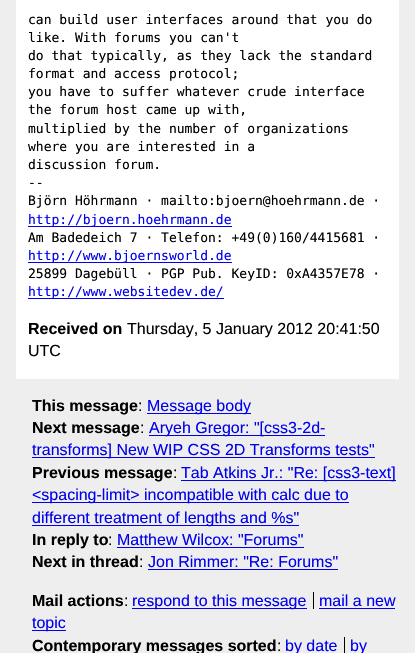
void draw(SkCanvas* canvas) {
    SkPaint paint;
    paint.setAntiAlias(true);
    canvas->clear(0xFFEEEEEE);
    paint.setColor(0xFFFFFFFF);
    canvas->drawRect(SkRect::MakeXYWH(16, 0, 383, 379), paint);
    SkFont font1(fontMgr->matchFamilyStyle("DejaVu Sans Mono", SkFontStyle::Normal()), 13);
    font1.setSubpixel(true);
    paint.setColor(0xFF000000);
    canvas->drawString("can build user interfaces around that you do", 28, 24, font1, paint);
    canvas->drawString("like. With forums you can't", 28, 42, font1, paint);
    canvas->drawString("do that typically, as they lack the standard", 28, 60, font1, paint);
    canvas->drawString("format and access protocol;", 28, 78, font1, paint);
    canvas->drawString("you have to suffer whatever crude interface", 28, 96, font1, paint);
    canvas->drawString("the forum host came up with,", 28, 114, font1, paint);
    canvas->drawString("multiplied by the number of organizations", 28, 133, font1, paint);
    canvas->drawString("where you are interested in a", 28, 151, font1, paint);
    canvas->drawString("discussion forum.", 28, 169, font1, paint);
    canvas->drawString("--", 28, 187, font1, paint);
    canvas->drawString("Björn Höhrmann · mailto:bjoern@hoehrmann.de ·", 28, 205, font1, paint);
    paint.setColor(0xFF0000EE);
    canvas->drawRect(SkRect::MakeXYWH(28, 226, 204, 1), paint);
    canvas->drawString("http://bjoern.hoehrmann.de", 28, 224, font1, paint);
    paint.setColor(0xFF000000);
    canvas->drawString("Am Badedeich 7 · Telefon: +49(0)160/4415681 ·", 28, 242, font1, paint);
    paint.setColor(0xFF0000EE);
    canvas->drawRect(SkRect::MakeXYWH(28, 262, 204, 1), paint);
    canvas->drawString("http://www.bjoernsworld.de", 28, 260, font1, paint);
    paint.setColor(0xFF000000);
    canvas->drawString("25899 Dagebüll · PGP Pub. KeyID: 0xA4357E78 ·", 28, 278, font1, paint);
    paint.setColor(0xFF0000EE);
    canvas->drawRect(SkRect::MakeXYWH(28, 298, 196, 1), paint);
    canvas->drawString("http://www.websitedev.de/", 28, 296, font1, paint);
    SkFont font2(fontMgr->matchFamilyStyle("Liberation Sans", SkFontStyle::Bold()), 16);
    font2.setSubpixel(true);
    paint.setColor(0xFF000000);
    canvas->drawString("Received on", 28, 334, font2, paint);
    SkFont font3(fontMgr->matchFamilyStyle("Liberation Sans", SkFontStyle::Normal()), 16);
    font3.setSubpixel(true);
    canvas->drawString("Thursday, 5 January 2012 20:41:50", 127, 334, font3, paint);
    canvas->drawString("UTC", 28, 356, font3, paint);
    canvas->drawString("This message", 32, 411, font2, paint);
    canvas->drawString(":", 138, 411, font3, paint);
    paint.setColor(0xFF0000EE);
    canvas->drawRect(SkRect::MakeXYWH(147, 413, 104, 1), paint);
    canvas->drawString("Message body", 147, 411, font3, paint);
    paint.setColor(0xFF000000);
    canvas->drawString("Next message", 32, 433, font2, paint);
    canvas->drawString(":", 140, 433, font3, paint);
    paint.setColor(0xFF0000EE);
    canvas->drawRect(SkRect::MakeXYWH(149, 435, 176, 1), paint);
    canvas->drawString("Aryeh Gregor: \"[css3-2d-", 149, 433, font3, paint);
    canvas->drawRect(SkRect::MakeXYWH(32, 457, 343, 1), paint);
    canvas->drawString("transforms] New WIP CSS 2D Transforms tests\"", 32, 455, font3, paint);
    paint.setColor(0xFF000000);
    canvas->drawString("Previous message", 32, 478, font2, paint);
    canvas->drawString(":", 173, 478, font3, paint);
    paint.setColor(0xFF0000EE);
    canvas->drawRect(SkRect::MakeXYWH(181, 480, 215, 1), paint);
    canvas->drawString("Tab Atkins Jr.: \"Re: [css3-text]", 181, 478, font3, paint);
    canvas->drawRect(SkRect::MakeXYWH(32, 502, 317, 1), paint);
    canvas->drawString("<spacing-limit> incompatible with calc due to", 32, 500, font3, paint);
    canvas->drawRect(SkRect::MakeXYWH(32, 525, 267, 1), paint);
    canvas->drawString("different treatment of lengths and %s\"", 32, 523, font3, paint);
    paint.setColor(0xFF000000);
    canvas->drawString("In reply to", 32, 545, font2, paint);
    canvas->drawString(":", 108, 545, font3, paint);
    paint.setColor(0xFF0000EE);
    canvas->drawString("Matthew Wilcox: \"Forums\"", 117, 545, font3, paint);
    canvas->drawRect(SkRect::MakeXYWH(117, 547, 187, 1), paint);
    paint.setColor(0xFF000000);
    canvas->drawString("Next in thread", 32, 567, font2, paint);
    canvas->drawString(":", 139, 567, font3, paint);
    paint.setColor(0xFF0000EE);
    canvas->drawString("Jon Rimmer: \"Re: Forums\"", 148, 567, font3, paint);
    canvas->drawRect(SkRect::MakeXYWH(148, 569, 190, 1), paint);
    paint.setColor(0xFF000000);
    canvas->drawString("Mail actions", 32, 606, font2, paint);
    canvas->drawString(":", 124, 606, font3, paint);
    paint.setColor(0xFF0000EE);
    canvas->drawRect(SkRect::MakeXYWH(132, 608, 175, 1), paint);
    canvas->drawString("respond to this message", 132, 606, font3, paint);
    canvas->drawString("mail a new", 319, 606, font3, paint);
    paint.setColor(0xFF000000);
    canvas->drawRect(SkRect::MakeXYWH(313, 592, 1, 17), paint);
    paint.setColor(0xFF0000EE);
    canvas->drawRect(SkRect::MakeXYWH(319, 608, 76, 1), paint);
    canvas->drawRect(SkRect::MakeXYWH(32, 630, 34, 1), paint);
    canvas->drawString("topic", 32, 628, font3, paint);
    paint.setColor(0xFF000000);
    canvas->drawString("Contemporary messages sorted", 32, 651, font2, paint);
    canvas->drawString(":", 277, 651, font3, paint);
    paint.setColor(0xFF0000EE);
    canvas->drawString("by date", 285, 651, font3, paint);
    canvas->drawString("by", 350, 651, font3, paint);
    paint.setColor(0xFF000000);
    canvas->drawRect(SkRect::MakeXYWH(344, 637, 1, 16), paint);
}
